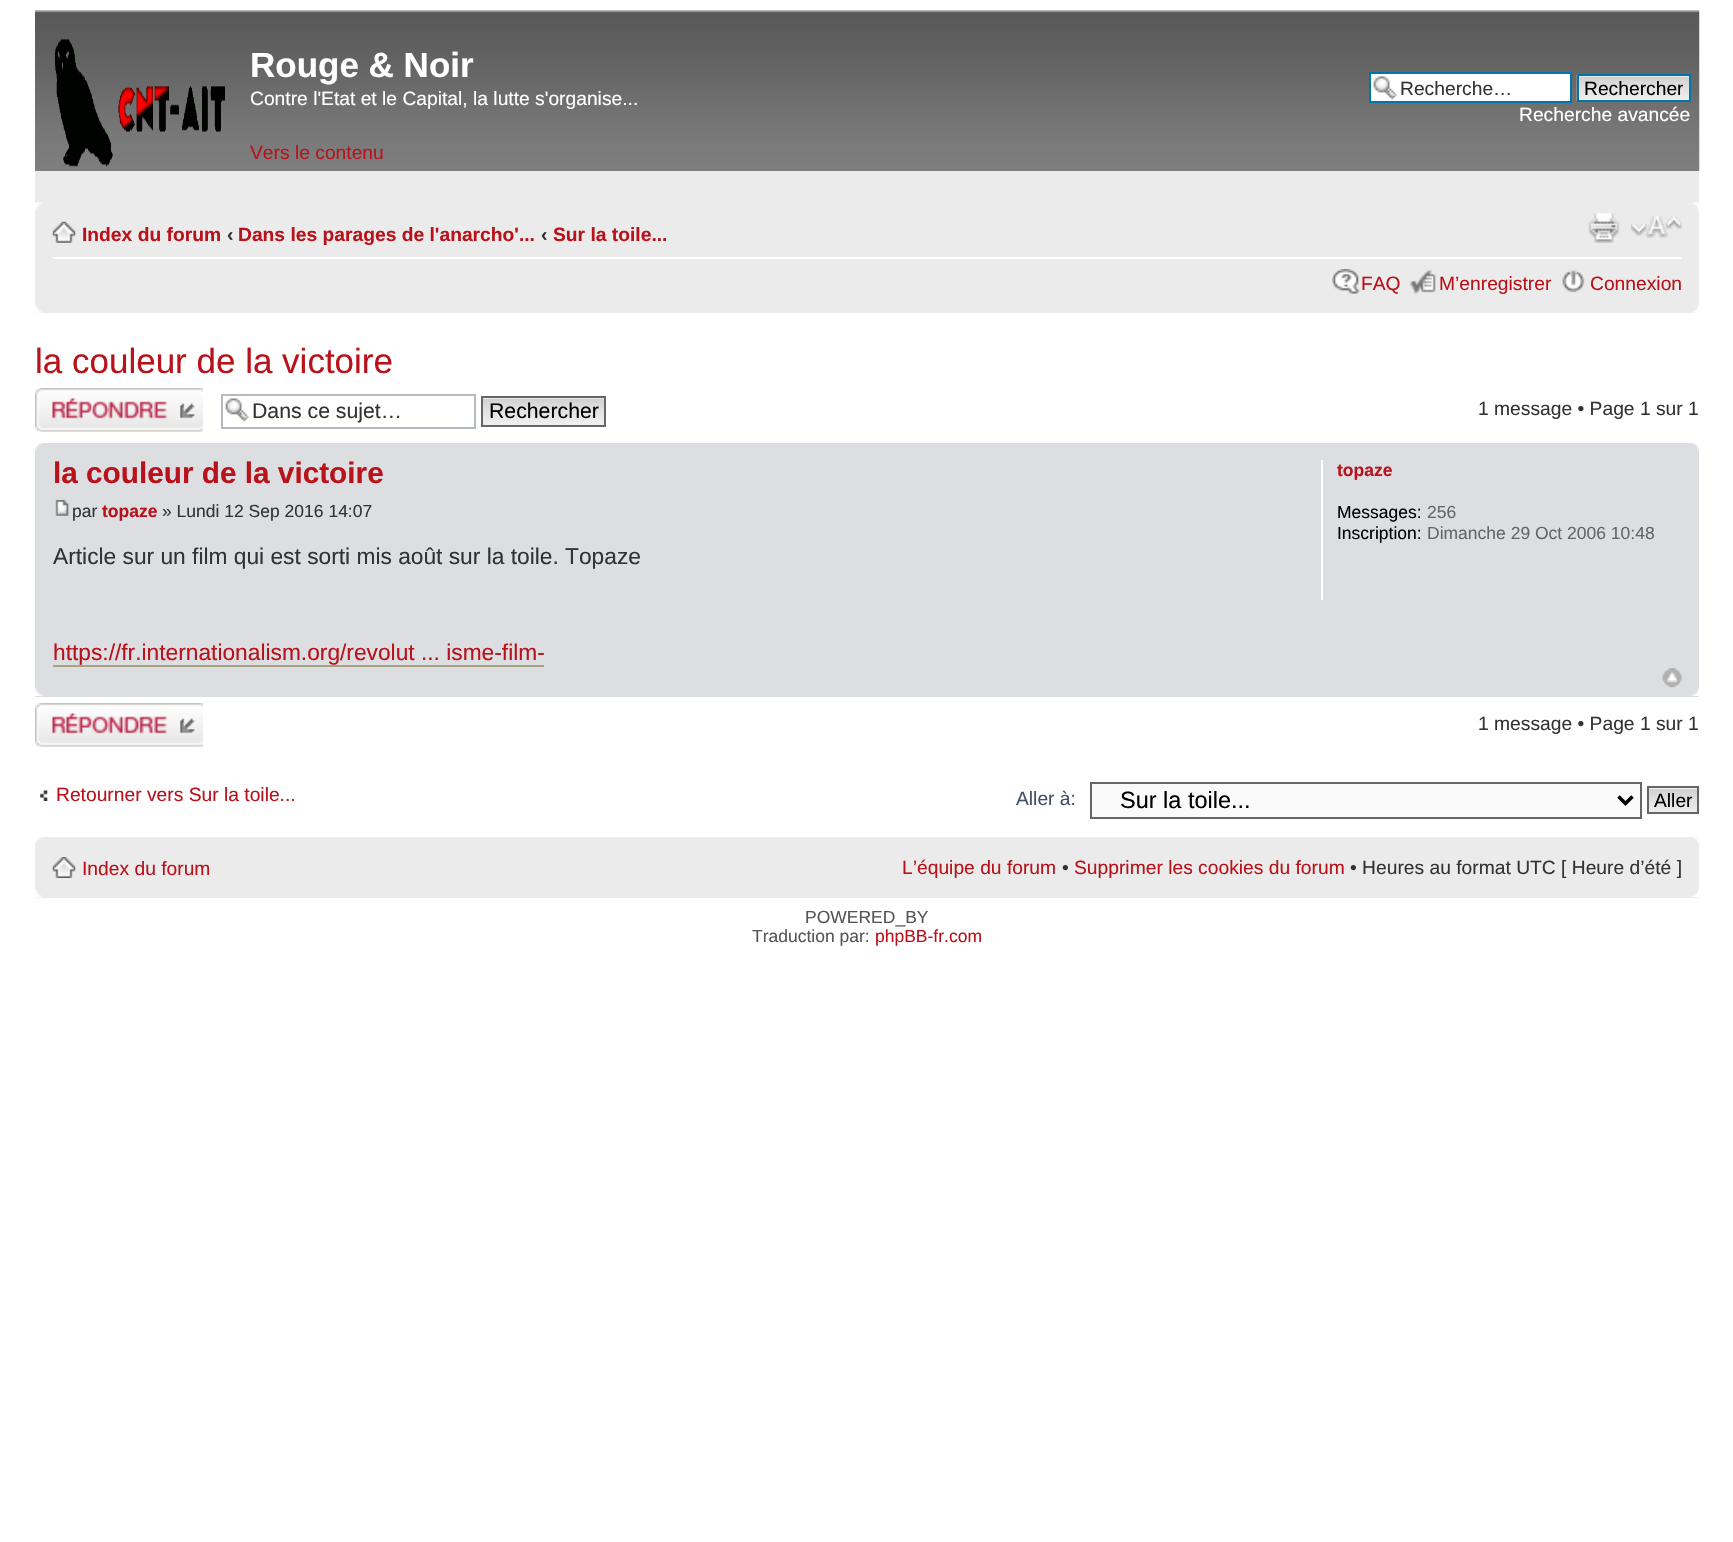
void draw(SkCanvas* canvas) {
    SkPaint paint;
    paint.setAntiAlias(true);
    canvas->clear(0xFFFFFFFF);
    paint.setColor(0xFFEBEBEB);
    canvas->drawRect(SkRect::MakeXYWH(35, 171, 1664, 142), paint);
    canvas->drawImageRect(SkImages::DeferredFromEncodedData(SkData::MakeFromFileName("img1.png")), SkRect::MakeXYWH(35, 10, 1665, 161), SkSamplingOptions());
    canvas->drawImageRect(SkImages::DeferredFromEncodedData(SkData::MakeFromFileName("img2.png")), SkRect::MakeXYWH(35, 10, 1, 2), SkSamplingOptions());
    canvas->drawImageRect(SkImages::DeferredFromEncodedData(SkData::MakeFromFileName("img3.png")), SkRect::MakeXYWH(55, 39, 170, 128), SkSamplingOptions());
    SkFont font1(fontMgr->matchFamilyStyle("Liberation Sans", SkFontStyle::Bold()), 35);
    font1.setSubpixel(true);
    paint.setColor(0xFFFFFFFF);
    canvas->drawString("Rouge & Noir", 250, 77, font1, paint);
    SkFont font2(fontMgr->matchFamilyStyle("Liberation Sans", SkFontStyle::Normal()), 19.25f);
    font2.setSubpixel(true);
    canvas->drawString("Contre l'Etat et le Capital, la lutte s'organise...", 250, 105, font2, paint);
    paint.setColor(0xFFB9121B);
    canvas->drawString("Vers le contenu", 250, 159, font2, paint);
    paint.setColor(0xFFFFFFFF);
    canvas->drawRect(SkRect::MakeXYWH(1371, 74, 199, 27), paint);
    canvas->drawImageRect(SkImages::DeferredFromEncodedData(SkData::MakeFromFileName("img4.png")), SkRect::MakeXYWH(1373, 76, 24, 24), SkSamplingOptions());
    paint.setStyle(SkPaint::kStroke_Style);
    paint.setStrokeWidth(2);
    paint.setColor(0xFF0075B0);
    canvas->drawRect(SkRect::MakeXYWH(1370, 73, 201, 29), paint);
    paint.setStyle(SkPaint::kFill_Style);
    paint.setColor(0xFF333333);
    canvas->drawString("Recherche…", 1400, 95, font2, paint);
    canvas->drawImageRect(SkImages::DeferredFromEncodedData(SkData::MakeFromFileName("img5.png")), SkRect::MakeXYWH(1576, 74, 113, 27), SkSamplingOptions());
    paint.setStyle(SkPaint::kStroke_Style);
    paint.setColor(0xFF0075B0);
    canvas->drawRect(SkRect::MakeXYWH(1578, 75, 112, 26), paint);
    paint.setStyle(SkPaint::kFill_Style);
    paint.setColor(0xFF000000);
    canvas->drawString("Rechercher", 1584, 95, font2, paint);
    paint.setColor(0xFFFFFFFF);
    canvas->drawString("Recherche avancée", 1519, 121, font2, paint);
    canvas->drawImageRect(SkImages::DeferredFromEncodedData(SkData::MakeFromFileName("img6.png")), SkRect::MakeXYWH(35, 202, 8, 9), SkSamplingOptions());
    canvas->drawImageRect(SkImages::DeferredFromEncodedData(SkData::MakeFromFileName("img7.png")), SkRect::MakeXYWH(1691, 202, 8, 9), SkSamplingOptions());
    canvas->drawRect(SkRect::MakeXYWH(53, 257, 1629, 2), paint);
    canvas->drawImageRect(SkImages::DeferredFromEncodedData(SkData::MakeFromFileName("img8.png")), SkRect::MakeXYWH(52, 221, 24, 22), SkSamplingOptions());
    SkFont font3(fontMgr->matchFamilyStyle("Liberation Sans", SkFontStyle::Bold()), 19.25f);
    font3.setSubpixel(true);
    paint.setColor(0xFFB9121B);
    canvas->drawString("Index du forum", 82, 241, font3, paint);
    paint.setColor(0xFF333333);
    canvas->drawString("‹", 227, 241, font3, paint);
    paint.setColor(0xFFB9121B);
    canvas->drawString("Dans les parages de l'anarcho'...", 238, 241, font3, paint);
    paint.setColor(0xFF333333);
    canvas->drawString("‹", 541, 241, font3, paint);
    paint.setColor(0xFFB9121B);
    canvas->drawString("Sur la toile...", 553, 241, font3, paint);
    canvas->drawImageRect(SkImages::DeferredFromEncodedData(SkData::MakeFromFileName("img9.png")), SkRect::MakeXYWH(1588, 213, 32, 30), SkSamplingOptions());
    canvas->drawImageRect(SkImages::DeferredFromEncodedData(SkData::MakeFromFileName("img10.png")), SkRect::MakeXYWH(1631, 216, 51, 22), SkSamplingOptions());
    canvas->drawImageRect(SkImages::DeferredFromEncodedData(SkData::MakeFromFileName("img11.png")), SkRect::MakeXYWH(1332, 269, 28, 25), SkSamplingOptions());
    canvas->drawString("FAQ", 1361, 290, font2, paint);
    canvas->drawImageRect(SkImages::DeferredFromEncodedData(SkData::MakeFromFileName("img12.png")), SkRect::MakeXYWH(1410, 270, 26, 24), SkSamplingOptions());
    canvas->drawString("M’enregistrer", 1439, 290, font2, paint);
    canvas->drawImageRect(SkImages::DeferredFromEncodedData(SkData::MakeFromFileName("img13.png")), SkRect::MakeXYWH(1562, 270, 23, 23), SkSamplingOptions());
    canvas->drawString("Connexion", 1590, 290, font2, paint);
    canvas->drawImageRect(SkImages::DeferredFromEncodedData(SkData::MakeFromFileName("img14.png")), SkRect::MakeXYWH(35, 304, 8, 9), SkSamplingOptions());
    canvas->drawImageRect(SkImages::DeferredFromEncodedData(SkData::MakeFromFileName("img15.png")), SkRect::MakeXYWH(1692, 304, 7, 9), SkSamplingOptions());
    SkFont font4(fontMgr->matchFamilyStyle("Liberation Sans", SkFontStyle::Normal()), 35);
    font4.setSubpixel(true);
    canvas->drawString("la couleur de la victoire", 35, 373, font4, paint);
    canvas->drawImageRect(SkImages::DeferredFromEncodedData(SkData::MakeFromFileName("img16.png")), SkRect::MakeXYWH(35, 388, 168, 44), SkSamplingOptions());
    canvas->drawImageRect(SkImages::DeferredFromEncodedData(SkData::MakeFromFileName("img4.png")), SkRect::MakeXYWH(225, 398, 24, 24), SkSamplingOptions());
    paint.setStyle(SkPaint::kStroke_Style);
    paint.setColor(0xFFB4BAC0);
    canvas->drawRect(SkRect::MakeXYWH(222, 395, 253, 33), paint);
    SkFont font5(fontMgr->matchFamilyStyle("Liberation Sans", SkFontStyle::Normal()), 21.25f);
    font5.setSubpixel(true);
    paint.setStyle(SkPaint::kFill_Style);
    paint.setColor(0xFF333333);
    canvas->drawString("Dans ce sujet…", 252, 418, font5, paint);
    canvas->drawImageRect(SkImages::DeferredFromEncodedData(SkData::MakeFromFileName("img17.png")), SkRect::MakeXYWH(483, 398, 121, 27), SkSamplingOptions());
    paint.setStyle(SkPaint::kStroke_Style);
    paint.setColor(0xFF666666);
    canvas->drawRect(SkRect::MakeXYWH(482, 397, 123, 29), paint);
    paint.setStyle(SkPaint::kFill_Style);
    paint.setColor(0xFF000000);
    canvas->drawString("Rechercher", 489, 418, font5, paint);
    paint.setColor(0xFF333333);
    canvas->drawString("1 message • Page 1 sur 1", 1478, 415, font2, paint);
    paint.setColor(0xFFDCDEE2);
    canvas->drawRect(SkRect::MakeXYWH(35, 443, 1664, 254), paint);
    canvas->drawImageRect(SkImages::DeferredFromEncodedData(SkData::MakeFromFileName("img18.png")), SkRect::MakeXYWH(35, 443, 9, 8), SkSamplingOptions());
    canvas->drawImageRect(SkImages::DeferredFromEncodedData(SkData::MakeFromFileName("img19.png")), SkRect::MakeXYWH(1691, 443, 8, 8), SkSamplingOptions());
    SkFont font6(fontMgr->matchFamilyStyle("Liberation Sans", SkFontStyle::Bold()), 29.75f);
    font6.setSubpixel(true);
    paint.setColor(0xFFB9121B);
    canvas->drawString("la couleur de la victoire", 53, 483, font6, paint);
    canvas->drawImageRect(SkImages::DeferredFromEncodedData(SkData::MakeFromFileName("img20.png")), SkRect::MakeXYWH(55, 500, 14, 16), SkSamplingOptions());
    SkFont font7(fontMgr->matchFamilyStyle("Liberation Sans", SkFontStyle::Normal()), 17.5f);
    font7.setSubpixel(true);
    paint.setColor(0xFF333333);
    canvas->drawString("par", 72, 517, font7, paint);
    SkFont font8(fontMgr->matchFamilyStyle("Liberation Sans", SkFontStyle::Bold()), 17.5f);
    font8.setSubpixel(true);
    paint.setColor(0xFFB9121B);
    canvas->drawString("topaze", 102, 517, font8, paint);
    paint.setColor(0xFF333333);
    canvas->drawString("» Lundi 12 Sep 2016 14:07", 162, 517, font7, paint);
    SkFont font9(fontMgr->matchFamilyStyle("Liberation Sans", SkFontStyle::Normal()), 22.75f);
    font9.setSubpixel(true);
    canvas->drawString("Article sur un film qui est sorti mis août sur la toile. Topaze", 53, 564, font9, paint);
    paint.setColor(0xFFB9121B);
    canvas->drawString("https://fr.internationalism.org/revolut ... isme-film-", 53, 660, font9, paint);
    paint.setColor(0xFFA7A37E);
    canvas->drawRect(SkRect::MakeXYWH(53, 665, 491, 2), paint);
    paint.setColor(0xFFFFFFFF);
    canvas->drawRect(SkRect::MakeXYWH(1321, 460, 2, 140), paint);
    paint.setColor(0xFFB9121B);
    canvas->drawString("topaze", 1337, 476, font8, paint);
    paint.setColor(0xFF000000);
    canvas->drawString("Messages:", 1337, 518, font7, paint);
    paint.setColor(0xFF666666);
    canvas->drawString("256", 1427, 518, font7, paint);
    paint.setColor(0xFF000000);
    canvas->drawString("Inscription:", 1337, 539, font7, paint);
    paint.setColor(0xFF666666);
    canvas->drawString("Dimanche 29 Oct 2006 10:48", 1427, 539, font7, paint);
    canvas->drawImageRect(SkImages::DeferredFromEncodedData(SkData::MakeFromFileName("img21.png")), SkRect::MakeXYWH(1662, 668, 20, 20), SkSamplingOptions());
    canvas->drawImageRect(SkImages::DeferredFromEncodedData(SkData::MakeFromFileName("img22.png")), SkRect::MakeXYWH(35, 687, 9, 9), SkSamplingOptions());
    canvas->drawImageRect(SkImages::DeferredFromEncodedData(SkData::MakeFromFileName("img23.png")), SkRect::MakeXYWH(1690, 687, 9, 9), SkSamplingOptions());
    canvas->drawImageRect(SkImages::DeferredFromEncodedData(SkData::MakeFromFileName("img16.png")), SkRect::MakeXYWH(35, 703, 168, 44), SkSamplingOptions());
    paint.setColor(0xFF333333);
    canvas->drawString("1 message • Page 1 sur 1", 1478, 730, font2, paint);
    canvas->drawImageRect(SkImages::DeferredFromEncodedData(SkData::MakeFromFileName("img24.png")), SkRect::MakeXYWH(40, 790, 8, 11), SkSamplingOptions());
    paint.setColor(0xFFB9121B);
    canvas->drawString("Retourner vers Sur la toile...", 56, 801, font2, paint);
    paint.setColor(0xFF425067);
    canvas->drawString("Aller à:", 1016, 805, font2, paint);
    paint.setColor(0xFFFAFAFA);
    canvas->drawRect(SkRect::MakeXYWH(1091, 783, 550, 35), paint);
    paint.setStyle(SkPaint::kStroke_Style);
    paint.setColor(0xFF666666);
    canvas->drawRect(SkRect::MakeXYWH(1091, 783, 550, 35), paint);
    paint.setStrokeWidth(3.5f);
    paint.setColor(0xFF000000);
    canvas->drawPath(SkPathBuilder().moveTo(1618.5f, 796.5f).lineTo(1625.5f, 803.5f).lineTo(1632.5f, 796.5f).detach(), paint);
    SkFont font10(fontMgr->matchFamilyStyle("Liberation Sans", SkFontStyle::Normal()), 23.5f);
    font10.setSubpixel(true);
    paint.setStyle(SkPaint::kFill_Style);
    canvas->drawString("Sur la toile...", 1120, 808, font10, paint);
    canvas->drawImageRect(SkImages::DeferredFromEncodedData(SkData::MakeFromFileName("img25.png")), SkRect::MakeXYWH(1646, 787, 54, 26), SkSamplingOptions());
    paint.setStyle(SkPaint::kStroke_Style);
    paint.setStrokeWidth(2);
    paint.setColor(0xFF666666);
    canvas->drawRect(SkRect::MakeXYWH(1648, 787, 50, 26), paint);
    paint.setStyle(SkPaint::kFill_Style);
    paint.setColor(0xFF000000);
    canvas->drawString("Aller", 1654, 807, font2, paint);
    paint.setColor(0xFFEBEBEB);
    canvas->drawRect(SkRect::MakeXYWH(35, 837, 1664, 61), paint);
    canvas->drawImageRect(SkImages::DeferredFromEncodedData(SkData::MakeFromFileName("img26.png")), SkRect::MakeXYWH(35, 837, 8, 7), SkSamplingOptions());
    canvas->drawImageRect(SkImages::DeferredFromEncodedData(SkData::MakeFromFileName("img27.png")), SkRect::MakeXYWH(1692, 837, 7, 7), SkSamplingOptions());
    canvas->drawImageRect(SkImages::DeferredFromEncodedData(SkData::MakeFromFileName("img28.png")), SkRect::MakeXYWH(52, 857, 24, 21), SkSamplingOptions());
    paint.setColor(0xFFB9121B);
    canvas->drawString("Index du forum", 82, 875, font2, paint);
    canvas->drawString("L’équipe du forum", 902, 874, font2, paint);
    paint.setColor(0xFF333333);
    canvas->drawString("•", 1062, 874, font2, paint);
    paint.setColor(0xFFB9121B);
    canvas->drawString("Supprimer les cookies du forum", 1074, 874, font2, paint);
    paint.setColor(0xFF333333);
    canvas->drawString("• Heures au format UTC [ Heure d’été ]", 1350, 874, font2, paint);
    canvas->drawImageRect(SkImages::DeferredFromEncodedData(SkData::MakeFromFileName("img29.png")), SkRect::MakeXYWH(35, 889, 8, 9), SkSamplingOptions());
    canvas->drawImageRect(SkImages::DeferredFromEncodedData(SkData::MakeFromFileName("img30.png")), SkRect::MakeXYWH(1691, 889, 8, 9), SkSamplingOptions());
    paint.setColor(0xFF555555);
    canvas->drawString("POWERED_BY", 805, 923, font7, paint);
    canvas->drawString("Traduction par:", 752, 942, font7, paint);
    paint.setColor(0xFFB9121B);
    canvas->drawString("phpBB-fr.com", 875, 942, font7, paint);
}
